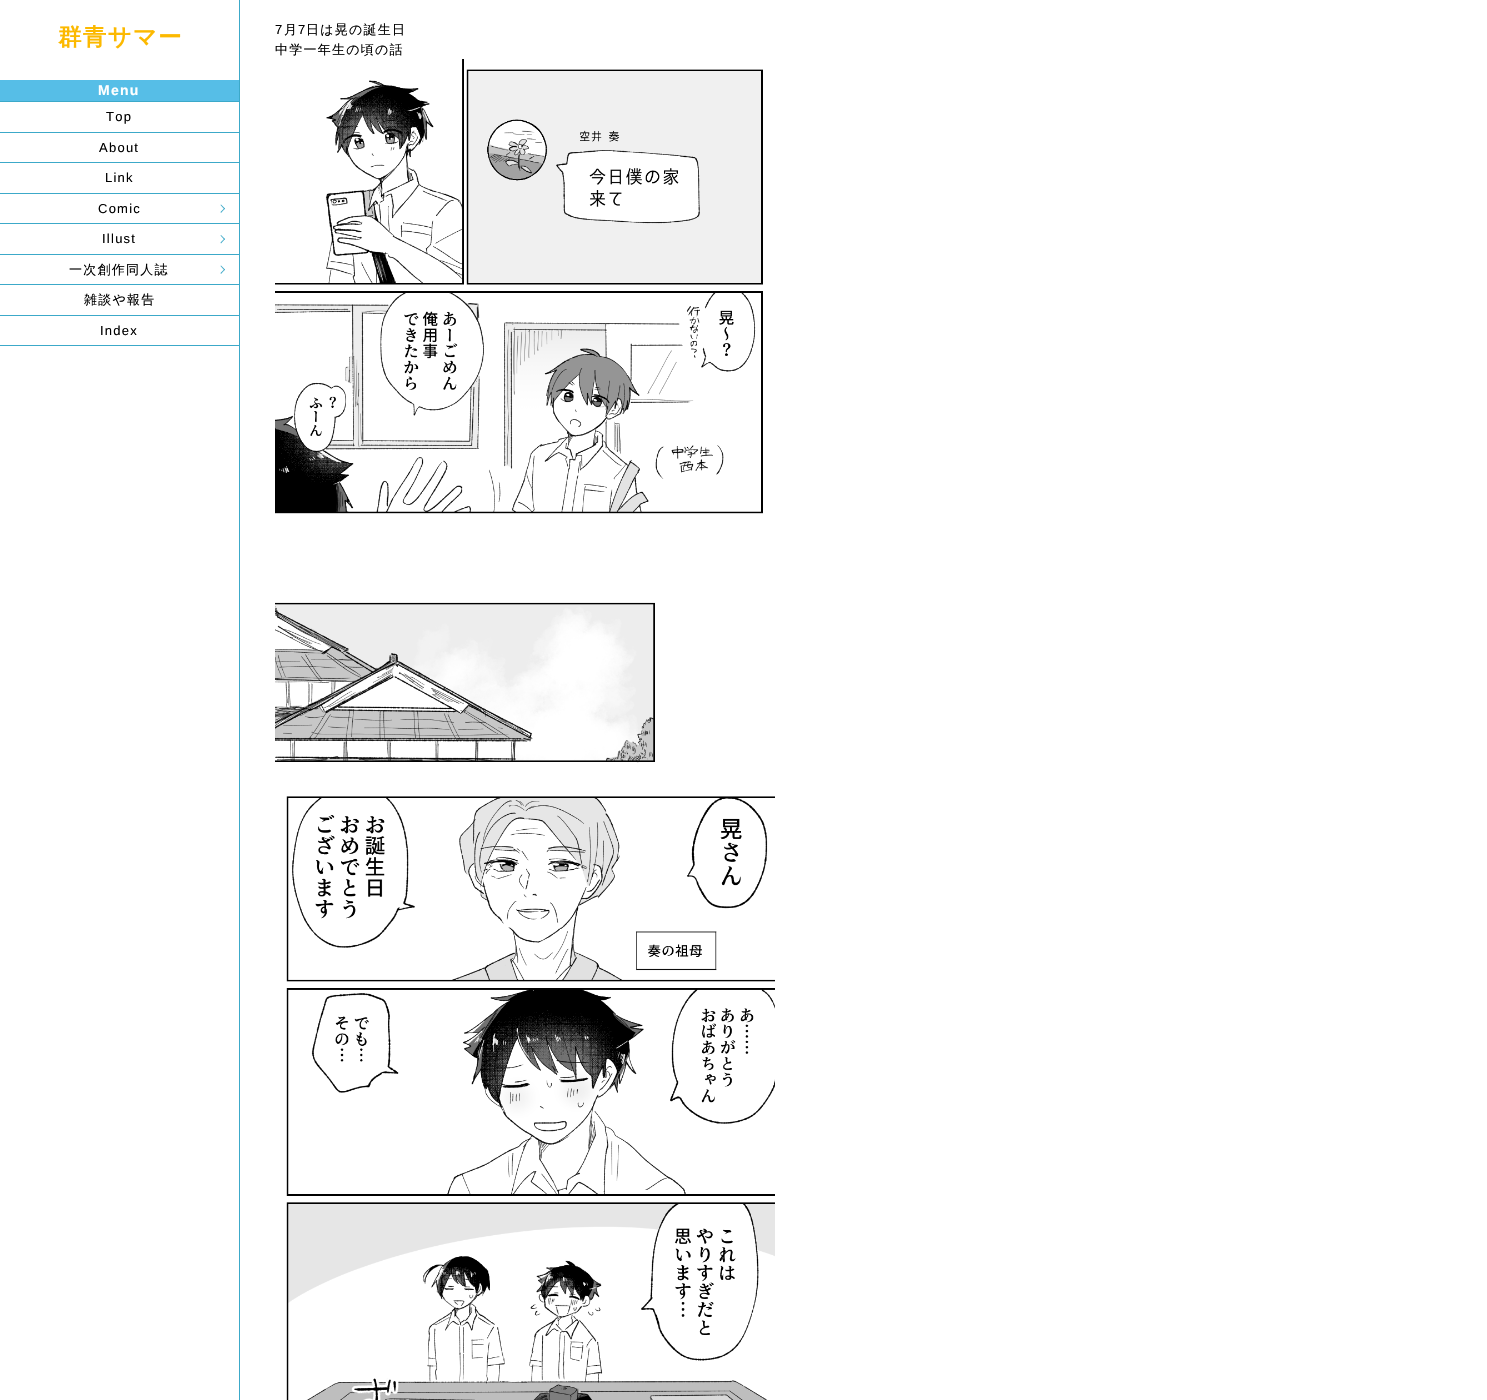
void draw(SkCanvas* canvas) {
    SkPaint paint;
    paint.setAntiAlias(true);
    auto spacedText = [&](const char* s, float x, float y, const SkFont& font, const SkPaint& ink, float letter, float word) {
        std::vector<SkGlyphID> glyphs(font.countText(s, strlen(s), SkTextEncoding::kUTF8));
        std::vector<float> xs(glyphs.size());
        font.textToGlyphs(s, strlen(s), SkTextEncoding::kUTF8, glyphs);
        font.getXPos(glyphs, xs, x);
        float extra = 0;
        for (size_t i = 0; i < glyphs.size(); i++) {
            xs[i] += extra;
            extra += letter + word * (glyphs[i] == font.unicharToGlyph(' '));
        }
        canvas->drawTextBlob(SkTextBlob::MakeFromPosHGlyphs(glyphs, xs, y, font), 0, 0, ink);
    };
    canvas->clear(0xFFFFFFFF);
    SkFont font1(fontMgr->matchFamilyStyle("Liberation Sans", SkFontStyle::Normal()), 13);
    font1.setSubpixel(true);
    paint.setColor(0xFF000000);
    spacedText("7", 275, 34, font1, paint, 1.25f, 0);
    SkFont font2(fontMgr->matchFamilyStyle("WenQuanYi Zen Hei", SkFontStyle(500, SkFontStyle::kNormal_Width, SkFontStyle::kUpright_Slant)), 13);
    font2.setSubpixel(true);
    spacedText("月", 284, 34, font2, paint, 1.25f, 0);
    spacedText("7", 298, 34, font1, paint, 1.25f, 0);
    spacedText("日は晃の誕生日", 306, 34, font2, paint, 1.25f, 0);
    spacedText("中学一年生の頃の話", 275, 54, font2, paint, 1.25f, 0);
    canvas->drawImageRect(SkImages::DeferredFromEncodedData(SkData::MakeFromFileName("img1.png")), SkRect::MakeXYWH(275, 59, 488, 704), SkSamplingOptions());
    canvas->drawImageRect(SkImages::DeferredFromEncodedData(SkData::MakeFromFileName("img2.png")), SkRect::MakeXYWH(286, 796, 489, 604), SkSamplingOptions());
    paint.setColor(0xFF3CA9C9);
    canvas->drawRect(SkRect::MakeXYWH(239, 0, 1, 1400), paint);
    paint.setColor(0xFF56BEE7);
    canvas->drawRect(SkRect::MakeXYWH(0, 80, 239, 21), paint);
    SkFont font3(fontMgr->matchFamilyStyle("Liberation Sans", SkFontStyle::Bold()), 14);
    font3.setSubpixel(true);
    paint.setColor(0xFFFFFFFF);
    spacedText("Menu", 98, 95, font3, paint, 1.25f, 0);
    paint.setColor(0xFF3CA9C9);
    canvas->drawRect(SkRect::MakeXYWH(0, 101, 239, 1), paint);
    paint.setColor(0xFF000000);
    spacedText("Top", 106, 121, font1, paint, 1.25f, 0);
    paint.setColor(0xFF3CA9C9);
    canvas->drawRect(SkRect::MakeXYWH(0, 132, 239, 1), paint);
    paint.setColor(0xFF000000);
    spacedText("About", 99, 152, font1, paint, 1.25f, 0);
    paint.setColor(0xFF3CA9C9);
    canvas->drawRect(SkRect::MakeXYWH(0, 162, 239, 1), paint);
    paint.setColor(0xFF000000);
    spacedText("Link", 105, 182, font1, paint, 1.25f, 0);
    paint.setColor(0xFF3CA9C9);
    canvas->drawRect(SkRect::MakeXYWH(0, 193, 239, 1), paint);
    paint.setColor(0xFF000000);
    spacedText("Comic", 98, 213, font1, paint, 1.25f, 0);
    paint.setColor(0xFF3CA9C9);
    canvas->drawPath(SkPathBuilder().moveTo(221, 204.5f).lineTo(225, 208.5f).lineTo(224.5f, 209.5f).lineTo(220.5f, 205).close().detach(), paint);
    canvas->drawPath(SkPathBuilder().moveTo(224.5f, 208).lineTo(225, 208.5f).lineTo(221, 213).lineTo(220.5f, 212).close().detach(), paint);
    canvas->drawRect(SkRect::MakeXYWH(0, 223, 239, 1), paint);
    paint.setColor(0xFF000000);
    spacedText("Illust", 102, 243, font1, paint, 1.25f, 0);
    paint.setColor(0xFF3CA9C9);
    canvas->drawPath(SkPathBuilder().moveTo(221, 235).lineTo(225, 239).lineTo(224.5f, 240).lineTo(220.5f, 235.5f).close().detach(), paint);
    canvas->drawPath(SkPathBuilder().moveTo(224.5f, 238.5f).lineTo(225, 239).lineTo(221, 243.5f).lineTo(220.5f, 242.5f).close().detach(), paint);
    canvas->drawRect(SkRect::MakeXYWH(0, 254, 239, 1), paint);
    paint.setColor(0xFF000000);
    spacedText("一次創作同人誌", 69, 274, font2, paint, 1.25f, 0);
    paint.setColor(0xFF3CA9C9);
    canvas->drawPath(SkPathBuilder().moveTo(221, 265.5f).lineTo(225, 269.5f).lineTo(224.5f, 270.5f).lineTo(220.5f, 266).close().detach(), paint);
    canvas->drawPath(SkPathBuilder().moveTo(224.5f, 269).lineTo(225, 269.5f).lineTo(221, 274).lineTo(220.5f, 273).close().detach(), paint);
    canvas->drawRect(SkRect::MakeXYWH(0, 284, 239, 1), paint);
    paint.setColor(0xFF000000);
    spacedText("雑談や報告", 84, 304, font2, paint, 1.25f, 0);
    paint.setColor(0xFF3CA9C9);
    canvas->drawRect(SkRect::MakeXYWH(0, 315, 239, 1), paint);
    canvas->drawRect(SkRect::MakeXYWH(0, 345, 239, 1), paint);
    paint.setColor(0xFF000000);
    spacedText("Index", 100, 335, font1, paint, 1.25f, 0);
    SkFont font4(fontMgr->matchFamilyStyle("WenQuanYi Zen Hei", SkFontStyle::Bold()), 23.5f);
    font4.setSubpixel(true);
    paint.setColor(0xFFFCB900);
    spacedText("群青サマー", 58, 45, font4, paint, 1.25f, 0);
}
